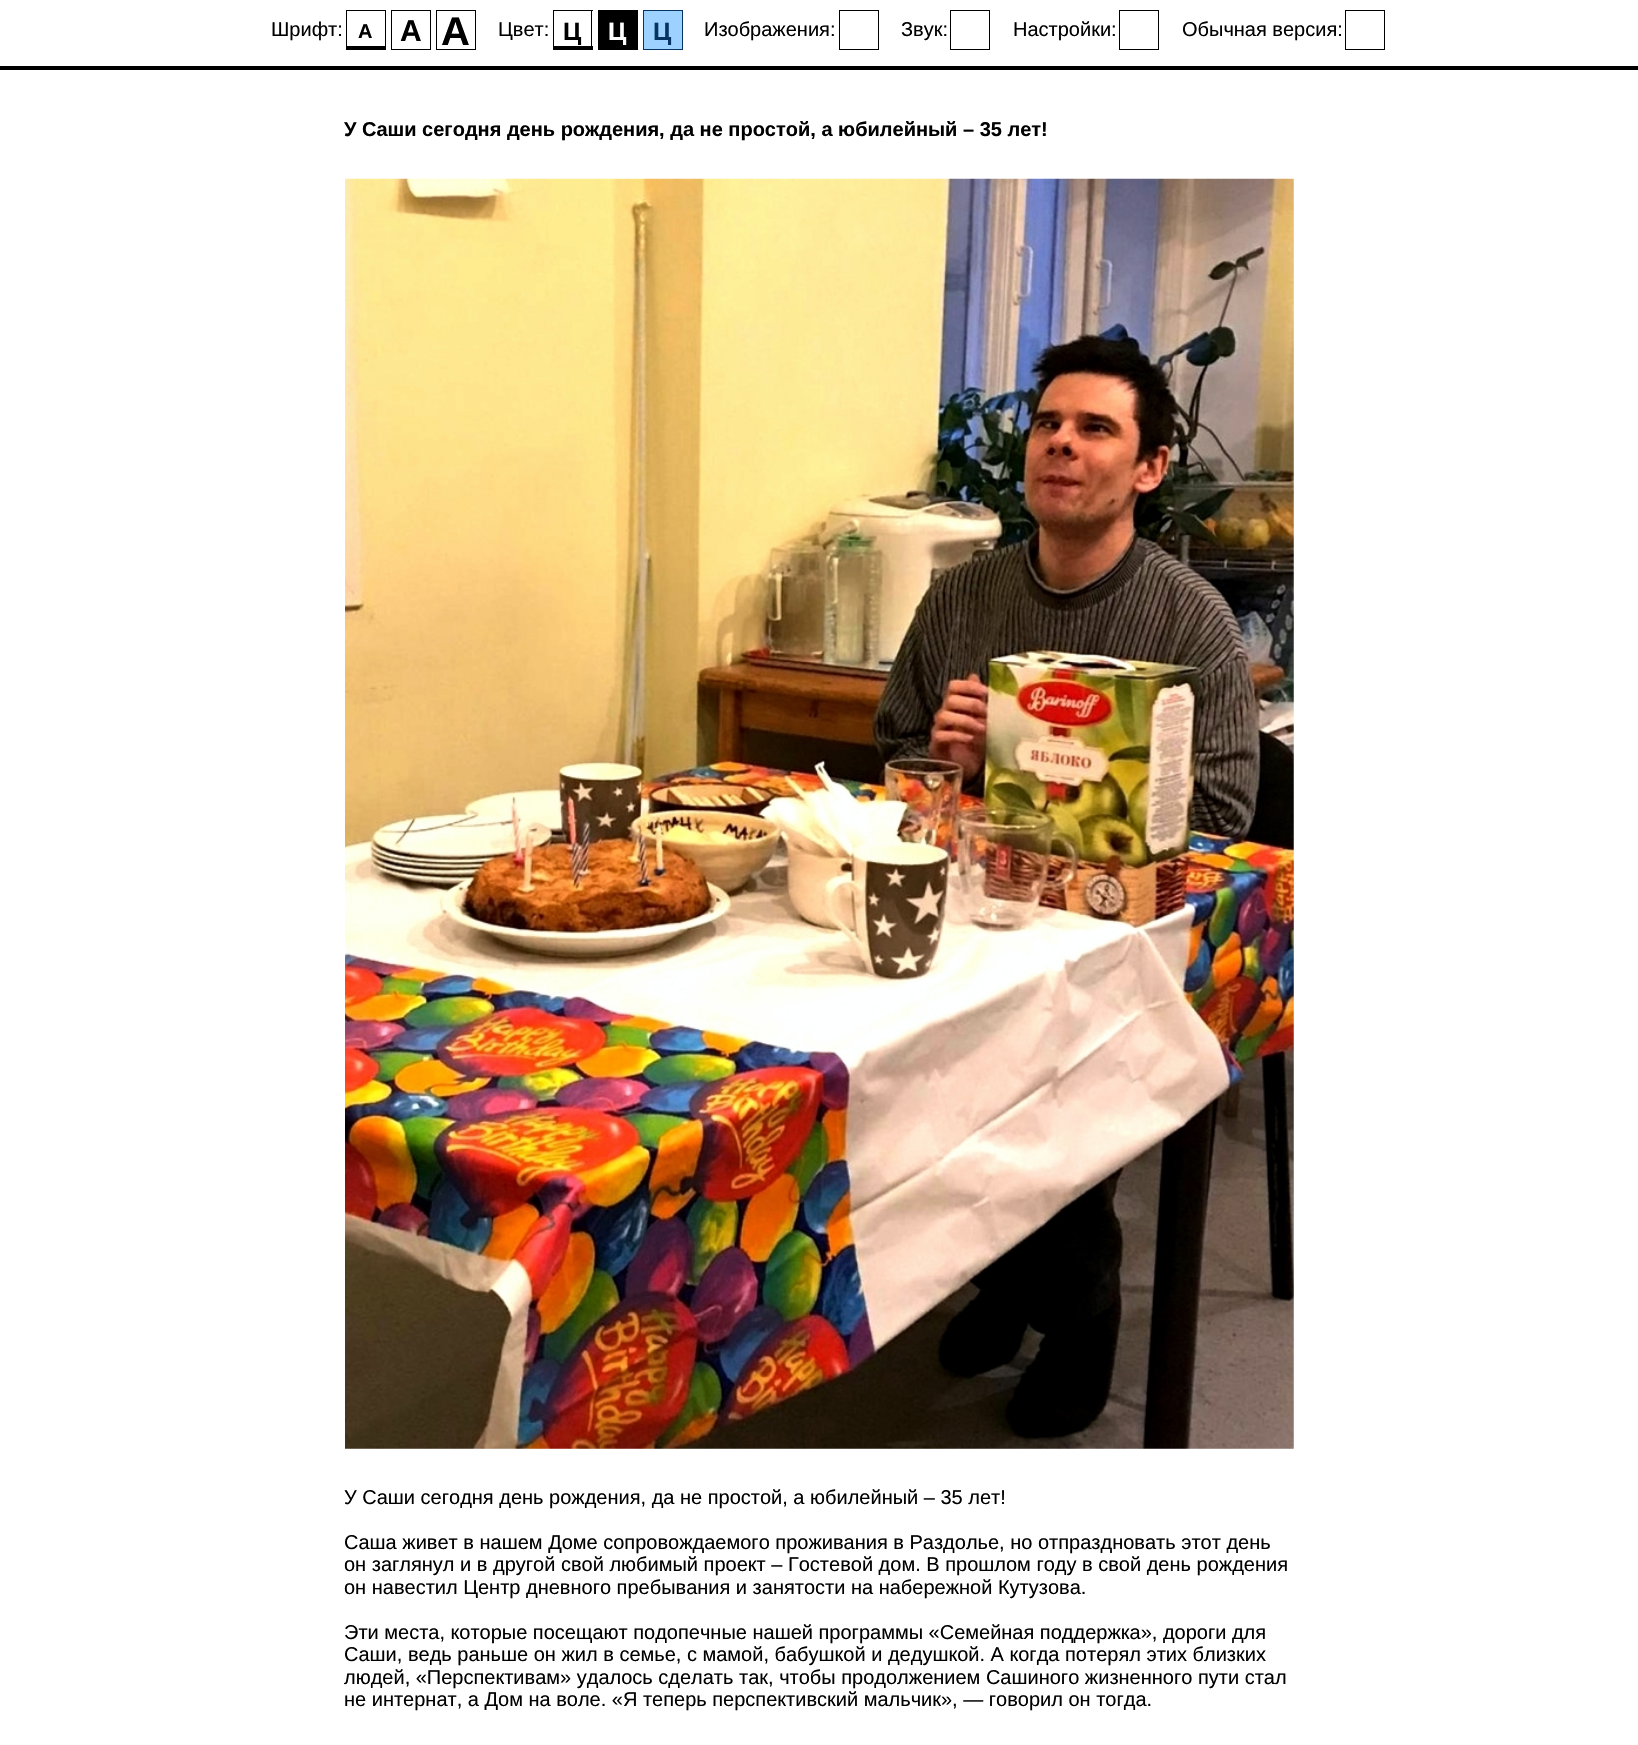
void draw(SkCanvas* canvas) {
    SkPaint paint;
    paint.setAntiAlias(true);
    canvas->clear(0xFFFFFFFF);
    paint.setColor(0xFF000000);
    canvas->drawRect(SkRect::MakeXYWH(0, 66, 1638, 4), paint);
    SkFont font1(fontMgr->matchFamilyStyle("Liberation Sans", SkFontStyle::Normal()), 20);
    font1.setSubpixel(true);
    canvas->drawString("Шрифт:", 271, 36, font1, paint);
    canvas->drawRect(SkRect::MakeXYWH(346, 10, 40, 1), paint);
    canvas->drawRect(SkRect::MakeXYWH(385, 10, 1, 40), paint);
    canvas->drawRect(SkRect::MakeXYWH(346, 46, 40, 4), paint);
    canvas->drawRect(SkRect::MakeXYWH(346, 10, 1, 40), paint);
    SkFont font2(fontMgr->matchFamilyStyle("Liberation Sans", SkFontStyle::Bold()), 20);
    font2.setSubpixel(true);
    canvas->drawString("A", 358, 38, font2, paint);
    paint.setStyle(SkPaint::kStroke_Style);
    paint.setStrokeWidth(1);
    canvas->drawRect(SkRect::MakeXYWH(391.5f, 10.5f, 39, 39), paint);
    SkFont font3(fontMgr->matchFamilyStyle("Liberation Sans", SkFontStyle::Bold()), 30);
    font3.setSubpixel(true);
    paint.setStyle(SkPaint::kFill_Style);
    canvas->drawString("A", 400, 41, font3, paint);
    paint.setStyle(SkPaint::kStroke_Style);
    canvas->drawRect(SkRect::MakeXYWH(436.5f, 10.5f, 39, 39), paint);
    SkFont font4(fontMgr->matchFamilyStyle("Liberation Sans", SkFontStyle::Bold()), 40);
    font4.setSubpixel(true);
    paint.setStyle(SkPaint::kFill_Style);
    canvas->drawString("A", 441, 45, font4, paint);
    canvas->drawString("Цвет:", 498, 36, font1, paint);
    canvas->drawRect(SkRect::MakeXYWH(553, 10, 40, 1), paint);
    canvas->drawRect(SkRect::MakeXYWH(591, 10, 1, 40), paint);
    canvas->drawRect(SkRect::MakeXYWH(553, 46, 40, 4), paint);
    canvas->drawRect(SkRect::MakeXYWH(553, 10, 1, 40), paint);
    SkFont font5(fontMgr->matchFamilyStyle("Liberation Sans", SkFontStyle::Bold()), 25);
    font5.setSubpixel(true);
    canvas->drawString("Ц", 563, 40, font5, paint);
    canvas->drawRect(SkRect::MakeXYWH(598, 10, 40, 40), paint);
    paint.setColor(0xFFFFFFFF);
    canvas->drawString("Ц", 608, 40, font5, paint);
    paint.setColor(0xFF9DD1FF);
    canvas->drawRect(SkRect::MakeXYWH(643.5f, 10.5f, 39, 39), paint);
    paint.setStyle(SkPaint::kStroke_Style);
    paint.setColor(0xFF063462);
    canvas->drawRect(SkRect::MakeXYWH(643.5f, 10.5f, 39, 39), paint);
    paint.setStyle(SkPaint::kFill_Style);
    canvas->drawString("Ц", 653, 40, font5, paint);
    paint.setColor(0xFF000000);
    canvas->drawString("Изображения:", 704, 36, font1, paint);
    paint.setStyle(SkPaint::kStroke_Style);
    canvas->drawRect(SkRect::MakeXYWH(839.5f, 10.5f, 39, 39), paint);
    paint.setStyle(SkPaint::kFill_Style);
    canvas->drawString("Звук:", 901, 36, font1, paint);
    paint.setStyle(SkPaint::kStroke_Style);
    canvas->drawRect(SkRect::MakeXYWH(950.5f, 10.5f, 39, 39), paint);
    paint.setStyle(SkPaint::kFill_Style);
    canvas->drawString("Настройки:", 1013, 36, font1, paint);
    paint.setStyle(SkPaint::kStroke_Style);
    canvas->drawRect(SkRect::MakeXYWH(1119.5f, 10.5f, 39, 39), paint);
    paint.setStyle(SkPaint::kFill_Style);
    canvas->drawString("Обычная версия:", 1182, 36, font1, paint);
    paint.setStyle(SkPaint::kStroke_Style);
    canvas->drawRect(SkRect::MakeXYWH(1345.5f, 10.5f, 39, 39), paint);
    paint.setStyle(SkPaint::kFill_Style);
    canvas->drawString("У Саши сегодня день рождения, да не простой, а юбилейный – 35 лет!", 344, 136, font2, paint);
    canvas->drawImageRect(SkImages::DeferredFromEncodedData(SkData::MakeFromFileName("img1.png")), SkRect::MakeXYWH(345, 178, 949, 1271), SkSamplingOptions());
    canvas->drawString("У Саши сегодня день рождения, да не простой, а юбилейный – 35 лет!", 344, 1504, font1, paint);
    canvas->drawString("Саша живет в нашем Доме сопровождаемого проживания в Раздолье, но отпраздновать этот день", 344, 1549, font1, paint);
    canvas->drawString("он заглянул и в другой свой любимый проект – Гостевой дом. В прошлом году в свой день рождения", 344, 1571, font1, paint);
    canvas->drawString("он навестил Центр дневного пребывания и занятости на набережной Кутузова.", 344, 1594, font1, paint);
    canvas->drawString("Эти места, которые посещают подопечные нашей программы «Семейная поддержка», дороги для", 344, 1639, font1, paint);
    canvas->drawString("Саши, ведь раньше он жил в семье, с мамой, бабушкой и дедушкой. А когда потерял этих близких", 344, 1661, font1, paint);
    canvas->drawString("людей, «Перспективам» удалось сделать так, чтобы продолжением Сашиного жизненного пути стал", 344, 1684, font1, paint);
    canvas->drawString("не интернат, а Дом на воле. «Я теперь перспективский мальчик», — говорил он тогда.", 344, 1706, font1, paint);
}
